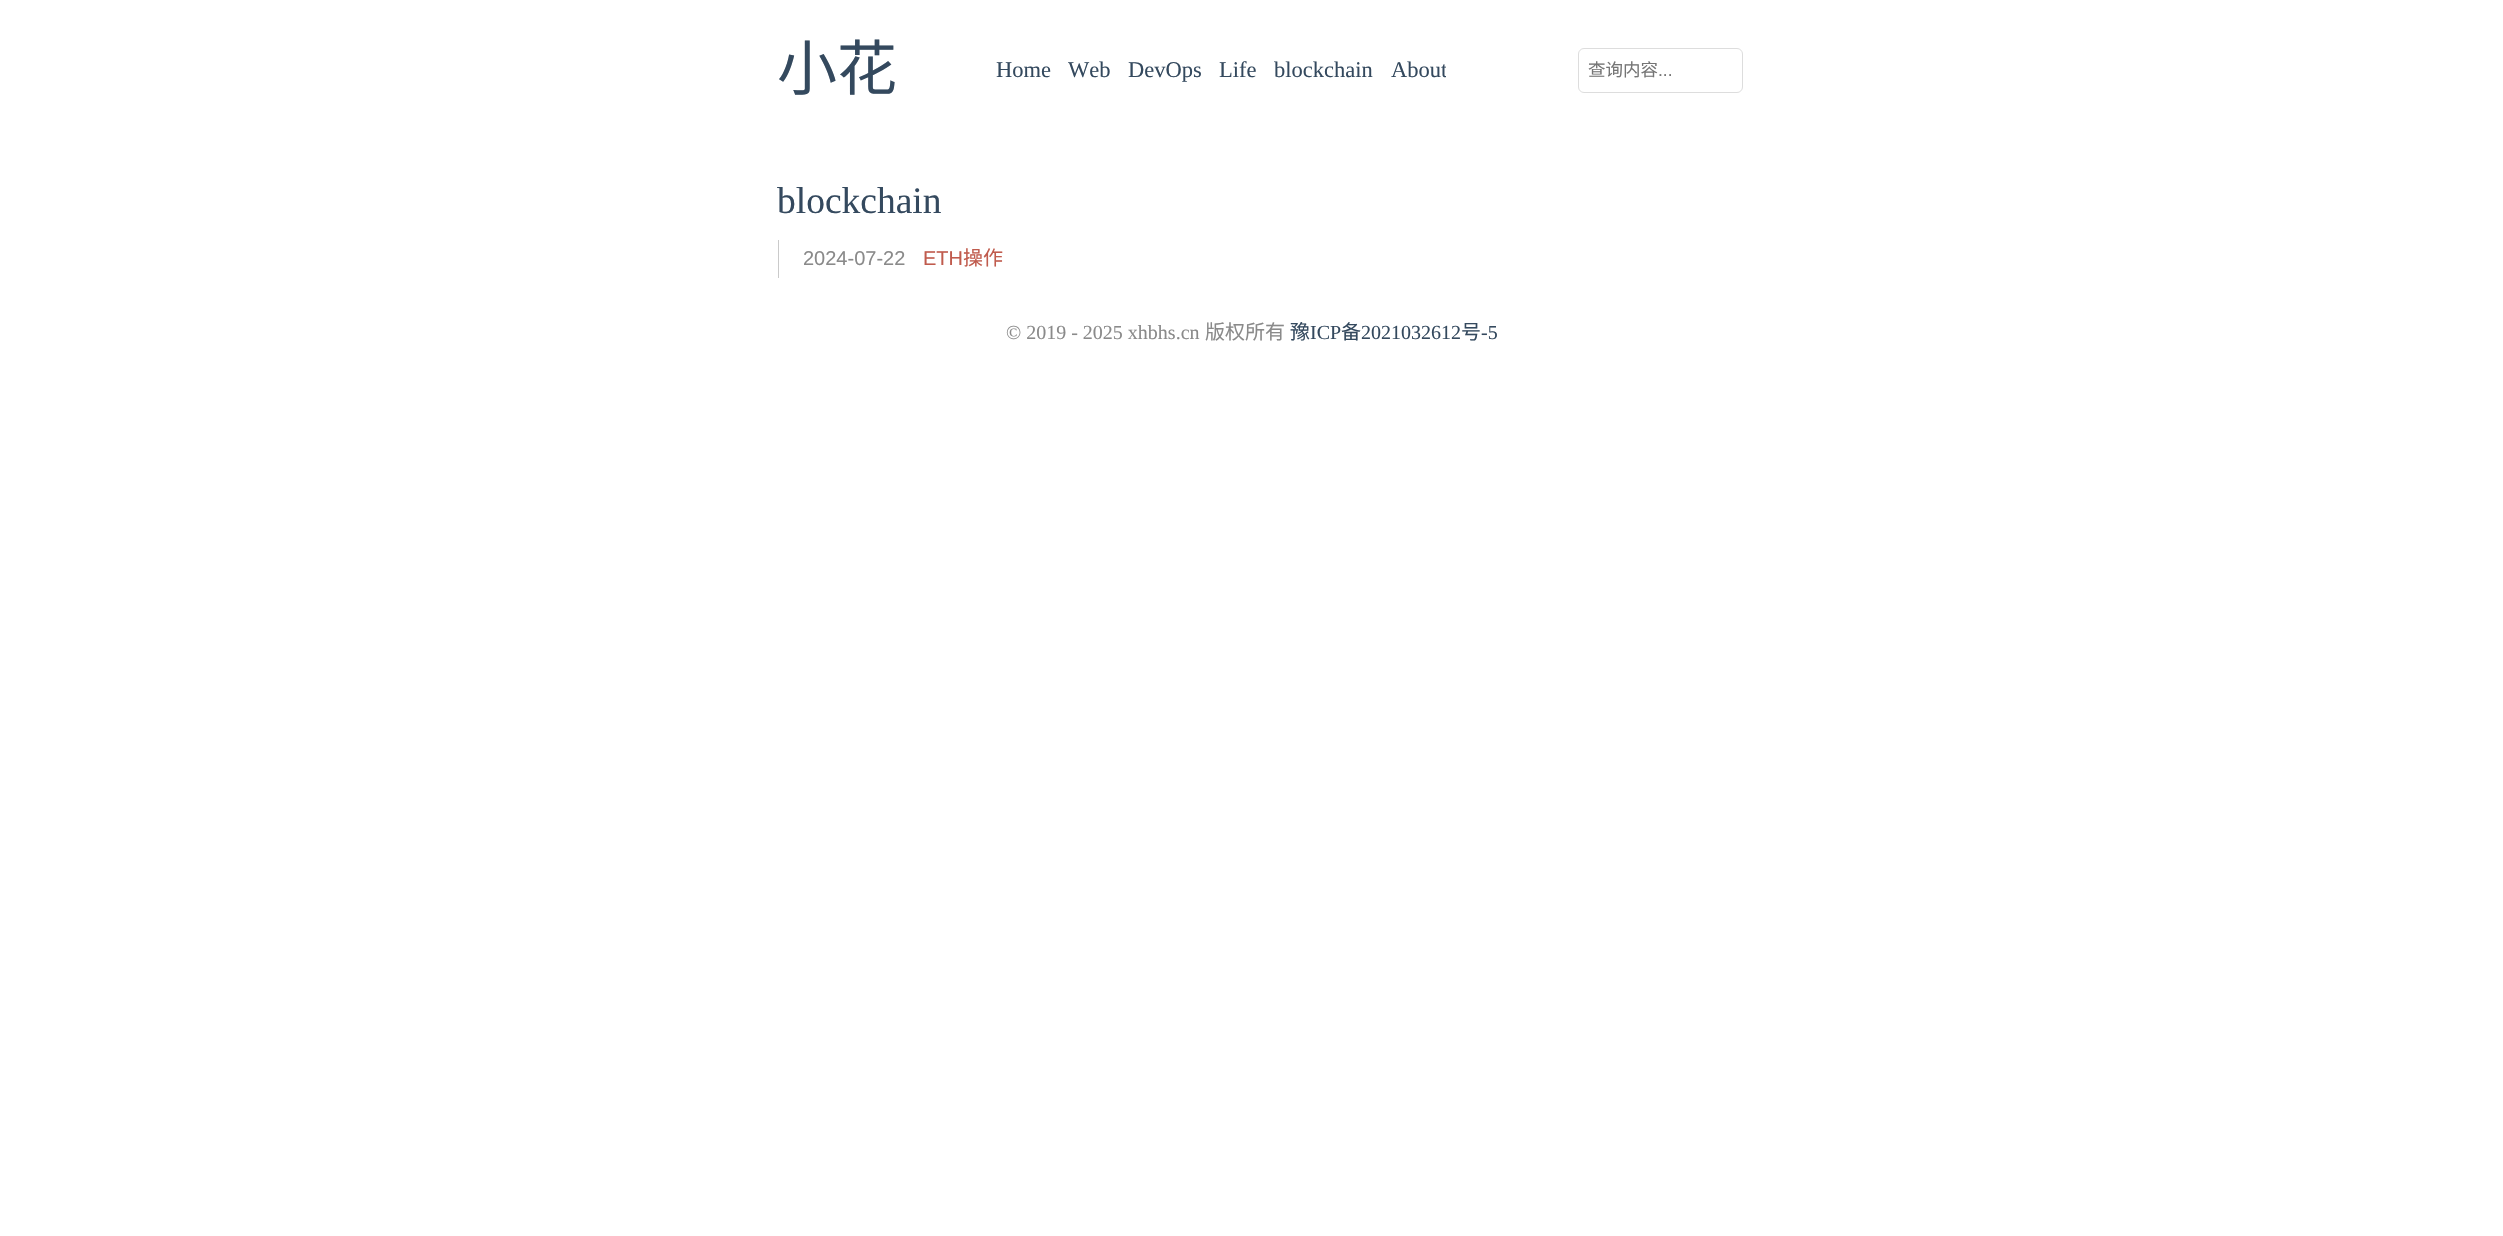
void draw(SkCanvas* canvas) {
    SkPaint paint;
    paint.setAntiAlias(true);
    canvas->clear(0xFFFFFFFF);
    SkFont font1(fontMgr->matchFamilyStyle("Noto Sans CJK SC", SkFontStyle::Normal()), 60);
    font1.setSubpixel(true);
    paint.setColor(0xFF34495E);
    canvas->drawString("小花", 777, 90, font1, paint);
    SkFont font2(fontMgr->matchFamilyStyle("Liberation Serif", SkFontStyle::Normal()), 22.5f);
    font2.setSubpixel(true);
    canvas->drawString("Home", 996, 77, font2, paint);
    canvas->drawString("Web", 1068, 77, font2, paint);
    canvas->drawString("DevOps", 1128, 77, font2, paint);
    canvas->drawString("Life", 1219, 77, font2, paint);
    canvas->drawString("blockchain", 1274, 77, font2, paint);
    canvas->save();
    canvas->clipRect(SkRect::MakeXYWH(1390, 54, 56, 34));
    canvas->drawString("About", 1391, 77, font2, paint);
    canvas->restore();
    paint.setStyle(SkPaint::kStroke_Style);
    paint.setStrokeWidth(1);
    paint.setColor(0xFFDDDDDD);
    canvas->drawRoundRect(SkRect::MakeXYWH(1578.5f, 48.5f, 164, 44), 5.5f, 5.5f, paint);
    SkFont font3(fontMgr->matchFamilyStyle("Noto Sans CJK SC", SkFontStyle::Normal()), 17.5f);
    font3.setSubpixel(true);
    paint.setStyle(SkPaint::kFill_Style);
    paint.setColor(0xFF757575);
    canvas->drawString("查询内容", 1588, 76, font3, paint);
    SkFont font4(fontMgr->matchFamilyStyle("Liberation Sans", SkFontStyle::Normal()), 17.5f);
    font4.setSubpixel(true);
    canvas->drawString("...", 1658, 76, font4, paint);
    SkFont font5(fontMgr->matchFamilyStyle("Liberation Serif", SkFontStyle::Normal()), 37.5f);
    font5.setSubpixel(true);
    paint.setColor(0xFF34495E);
    canvas->drawString("blockchain", 777, 213, font5, paint);
    paint.setColor(0xFFCACACA);
    canvas->drawRect(SkRect::MakeXYWH(778, 240, 1, 38), paint);
    SkFont font6(fontMgr->matchFamilyStyle("Liberation Sans", SkFontStyle::Normal()), 20);
    font6.setSubpixel(true);
    paint.setColor(0xFF8A8A8A);
    canvas->drawString("2024-07-22", 803, 265, font6, paint);
    paint.setColor(0xFFC05B4D);
    canvas->drawString("ETH", 923, 265, font6, paint);
    SkFont font7(fontMgr->matchFamilyStyle("Noto Sans CJK SC", SkFontStyle::Normal()), 20);
    font7.setSubpixel(true);
    canvas->drawString("操作", 963, 265, font7, paint);
    SkFont font8(fontMgr->matchFamilyStyle("Liberation Serif", SkFontStyle::Normal()), 20);
    font8.setSubpixel(true);
    paint.setColor(0xFF8A8A8A);
    canvas->drawString("© 2019 - 2025 xhbhs.cn", 1006, 339, font8, paint);
    canvas->drawString("版权所有", 1205, 339, font7, paint);
    paint.setColor(0xFF34495E);
    canvas->drawString("豫", 1290, 339, font7, paint);
    canvas->drawString("ICP", 1310, 339, font8, paint);
    canvas->drawString("备", 1341, 339, font7, paint);
    canvas->drawString("2021032612", 1361, 339, font8, paint);
    canvas->drawString("号", 1461, 339, font7, paint);
    canvas->drawString("-5", 1481, 339, font8, paint);
}
